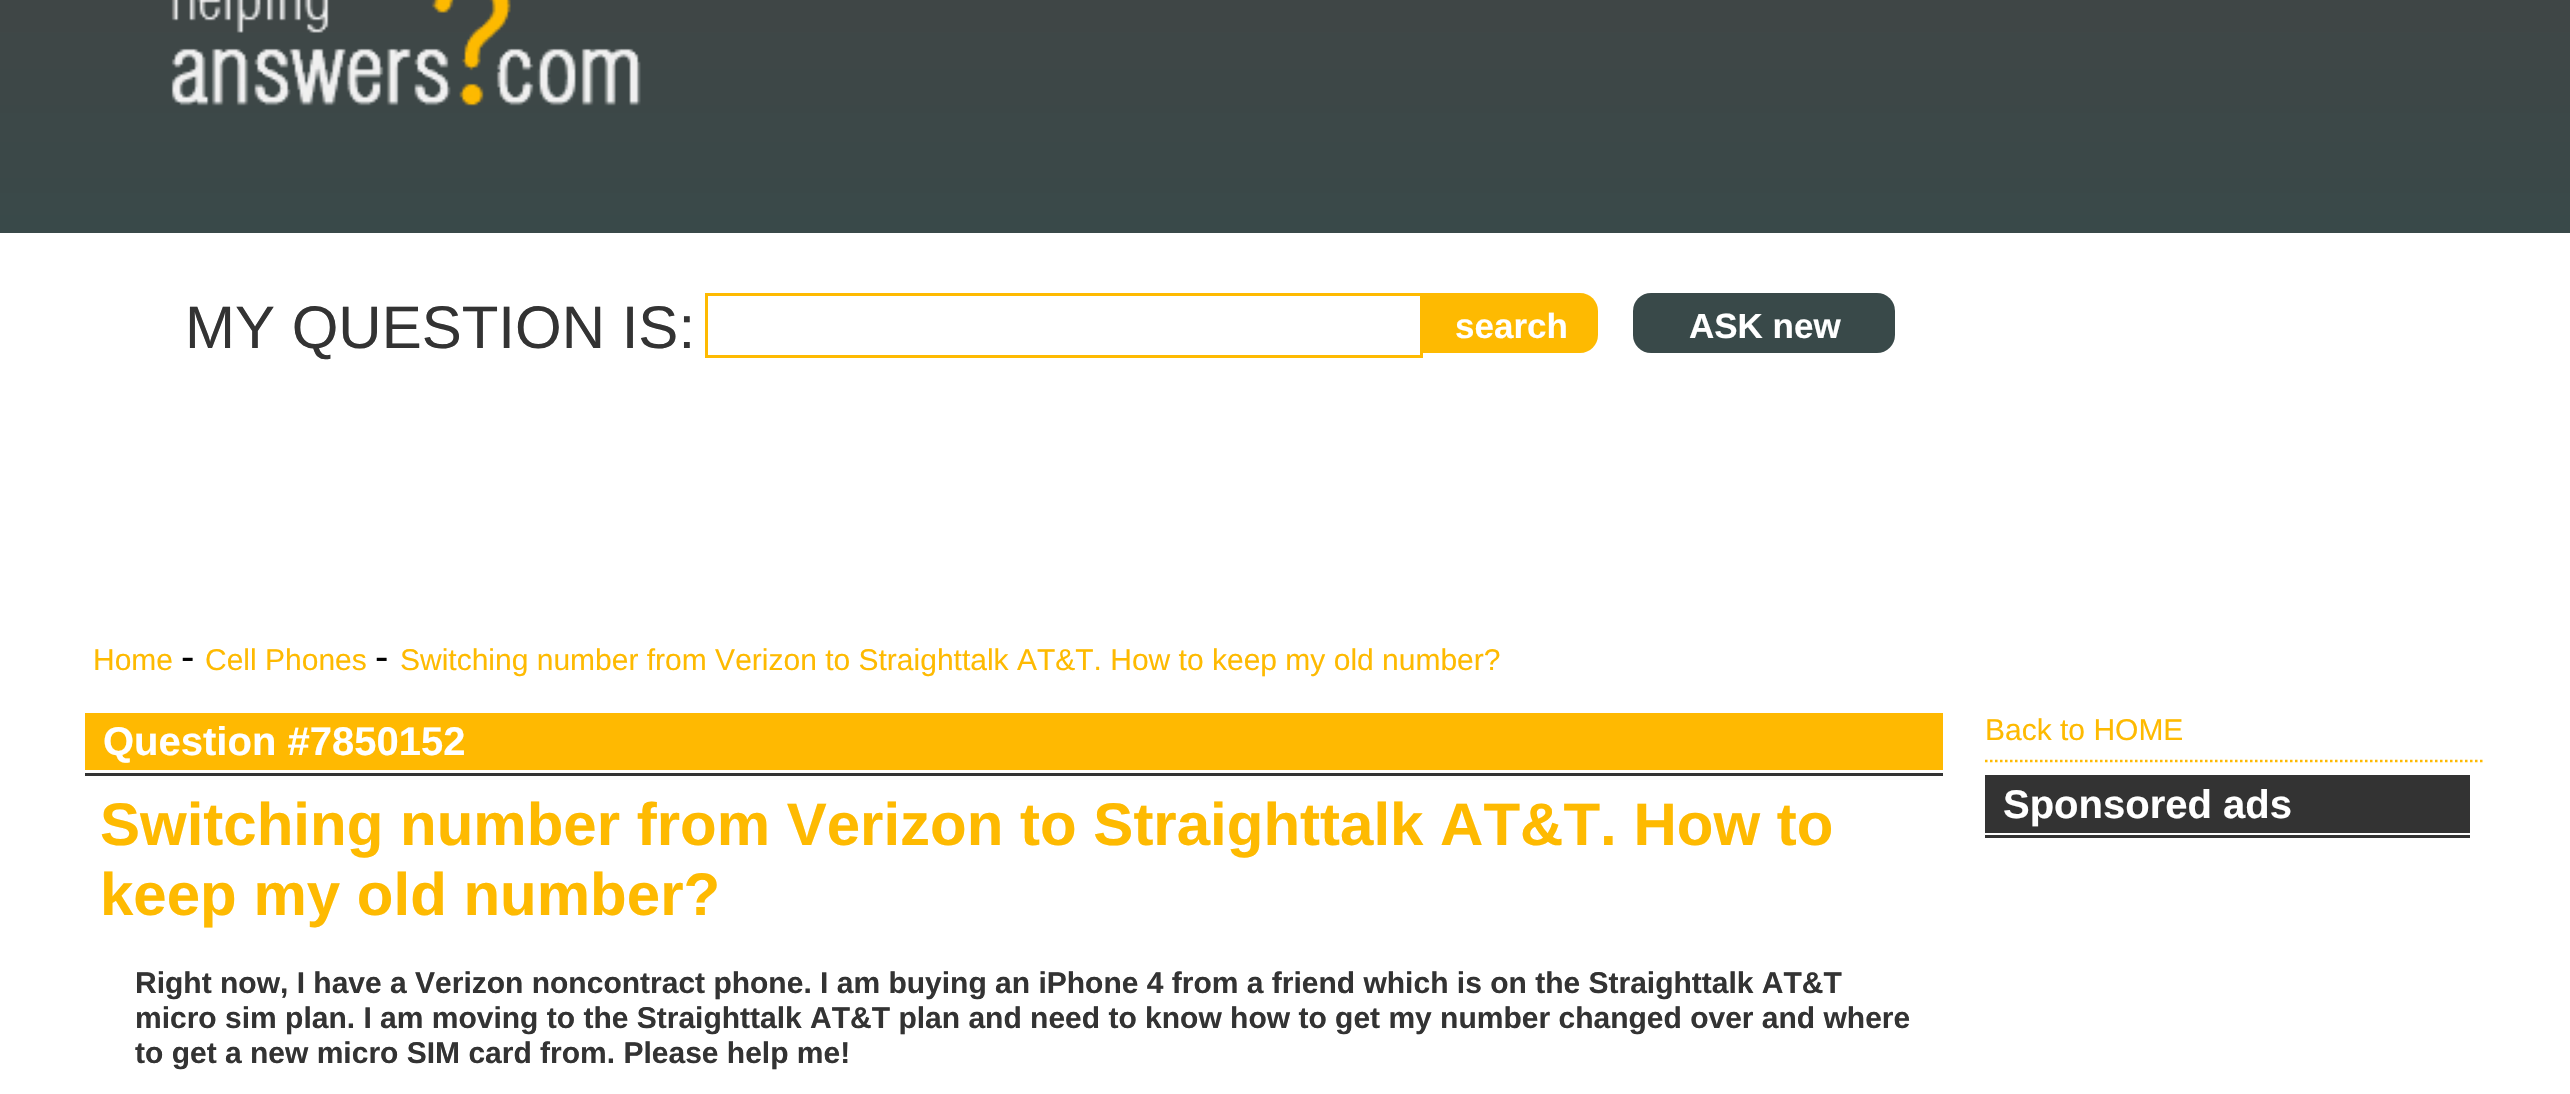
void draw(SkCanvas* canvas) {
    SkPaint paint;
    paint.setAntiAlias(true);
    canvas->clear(0xFFFFFFFF);
    {
        const SkColor colors[] = {0xFF444444, 0xFF394949};
        const float stops[] = {0, 1};
        const SkPoint ends[] = {{1285, -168}, {1285, 233}};
        paint.setShader(SkGradientShader::MakeLinear(ends, colors, stops, 2, SkTileMode::kClamp));
        paint.setAlpha(255);
    }
    canvas->drawRect(SkRect::MakeXYWH(0, 0, 2570, 233), paint);
    canvas->drawImageRect(SkImages::DeferredFromEncodedData(SkData::MakeFromFileName("img1.png")), SkRect::MakeXYWH(171, 0, 470, 106), SkSamplingOptions());
    SkFont font1(fontMgr->matchFamilyStyle("Liberation Sans", SkFontStyle::Normal()), 60);
    font1.setSubpixel(true);
    paint.setShader(nullptr);
    paint.setColor(0xFF333333);
    canvas->drawString("MY QUESTION IS:", 185, 348, font1, paint);
    paint.setStyle(SkPaint::kStroke_Style);
    paint.setStrokeWidth(3);
    paint.setColor(0xFFFEBA01);
    canvas->drawRect(SkRect::MakeXYWH(706.5f, 294.5f, 715, 62), paint);
    paint.setStyle(SkPaint::kFill_Style);
    canvas->drawPath(SkPathBuilder().moveTo(1423, 293).lineTo(1580, 293).cubicTo(1590, 293, 1598, 301, 1598, 311).lineTo(1598, 335).cubicTo(1598, 345, 1590, 353, 1580, 353).lineTo(1423, 353).close().detach(), paint);
    SkFont font2(fontMgr->matchFamilyStyle("Liberation Sans", SkFontStyle::Bold()), 35);
    font2.setSubpixel(true);
    paint.setColor(0xFFFFFFFF);
    canvas->drawString("search", 1455, 338, font2, paint);
    paint.setColor(0xFF394949);
    canvas->drawRoundRect(SkRect::MakeXYWH(1633, 293, 262, 60), 18, 18, paint);
    paint.setColor(0xFFFFFFFF);
    canvas->drawString("ASK new", 1689, 338, font2, paint);
    SkFont font3(fontMgr->matchFamilyStyle("Liberation Sans", SkFontStyle::Normal()), 30);
    font3.setSubpixel(true);
    paint.setColor(0xFFFEBA01);
    canvas->drawString("Home", 93, 670, font3, paint);
    SkFont font4(fontMgr->matchFamilyStyle("Liberation Sans", SkFontStyle::Normal()), 40);
    font4.setSubpixel(true);
    paint.setColor(0xFF000000);
    canvas->drawString("-", 181, 670, font4, paint);
    paint.setColor(0xFFFEBA01);
    canvas->drawString("Cell Phones", 205, 670, font3, paint);
    paint.setColor(0xFF000000);
    canvas->drawString("-", 375, 670, font4, paint);
    paint.setColor(0xFFFEBA01);
    canvas->drawString("Switching number from Verizon to Straighttalk AT&T. How to keep my old number?", 400, 670, font3, paint);
    paint.setColor(0xFFFFB901);
    canvas->drawRect(SkRect::MakeXYWH(85, 713, 1858, 57), paint);
    paint.setColor(0xFF333333);
    canvas->drawRect(SkRect::MakeXYWH(85, 773, 1858, 3), paint);
    SkFont font5(fontMgr->matchFamilyStyle("Liberation Sans", SkFontStyle::Bold()), 40);
    font5.setSubpixel(true);
    paint.setColor(0xFFFFFFFF);
    canvas->drawString("Question #7850152", 103, 755, font5, paint);
    SkFont font6(fontMgr->matchFamilyStyle("Liberation Sans", SkFontStyle::Bold()), 60);
    font6.setSubpixel(true);
    paint.setColor(0xFFFEBA01);
    canvas->drawString("Switching number from Verizon to Straighttalk AT&T. How to", 100, 845, font6, paint);
    canvas->drawString("keep my old number?", 100, 915, font6, paint);
    SkFont font7(fontMgr->matchFamilyStyle("Liberation Sans", SkFontStyle::Bold()), 30);
    font7.setSubpixel(true);
    paint.setColor(0xFF333333);
    canvas->drawString("Right now, I have a Verizon noncontract phone. I am buying an iPhone 4 from a friend which is on the Straighttalk AT&T", 135, 993, font7, paint);
    canvas->drawString("micro sim plan. I am moving to the Straighttalk AT&T plan and need to know how to get my number changed over and where", 135, 1028, font7, paint);
    canvas->drawString("to get a new micro SIM card from. Please help me!", 135, 1063, font7, paint);
    paint.setStyle(SkPaint::kStroke_Style);
    paint.setStrokeWidth(2.5f);
    paint.setColor(0xFFFEBA01);
    paint.setPathEffect(SkDashPathEffect::Make({{2.5f, 2.5f}}, 0));
    canvas->drawPath(SkPathBuilder().moveTo(1985, 761).lineTo(2485, 761).detach(), paint);
    paint.setPathEffect(nullptr);
    paint.setStyle(SkPaint::kFill_Style);
    canvas->drawString("Back to HOME", 1985, 740, font3, paint);
    paint.setColor(0xFF333333);
    canvas->drawRect(SkRect::MakeXYWH(1985, 775, 485, 63), paint);
    paint.setColor(0xFFFFFFFF);
    canvas->drawString("Sponsored ads", 2003, 818, font5, paint);
    canvas->drawRect(SkRect::MakeXYWH(1985, 833, 485, 2), paint);
}
